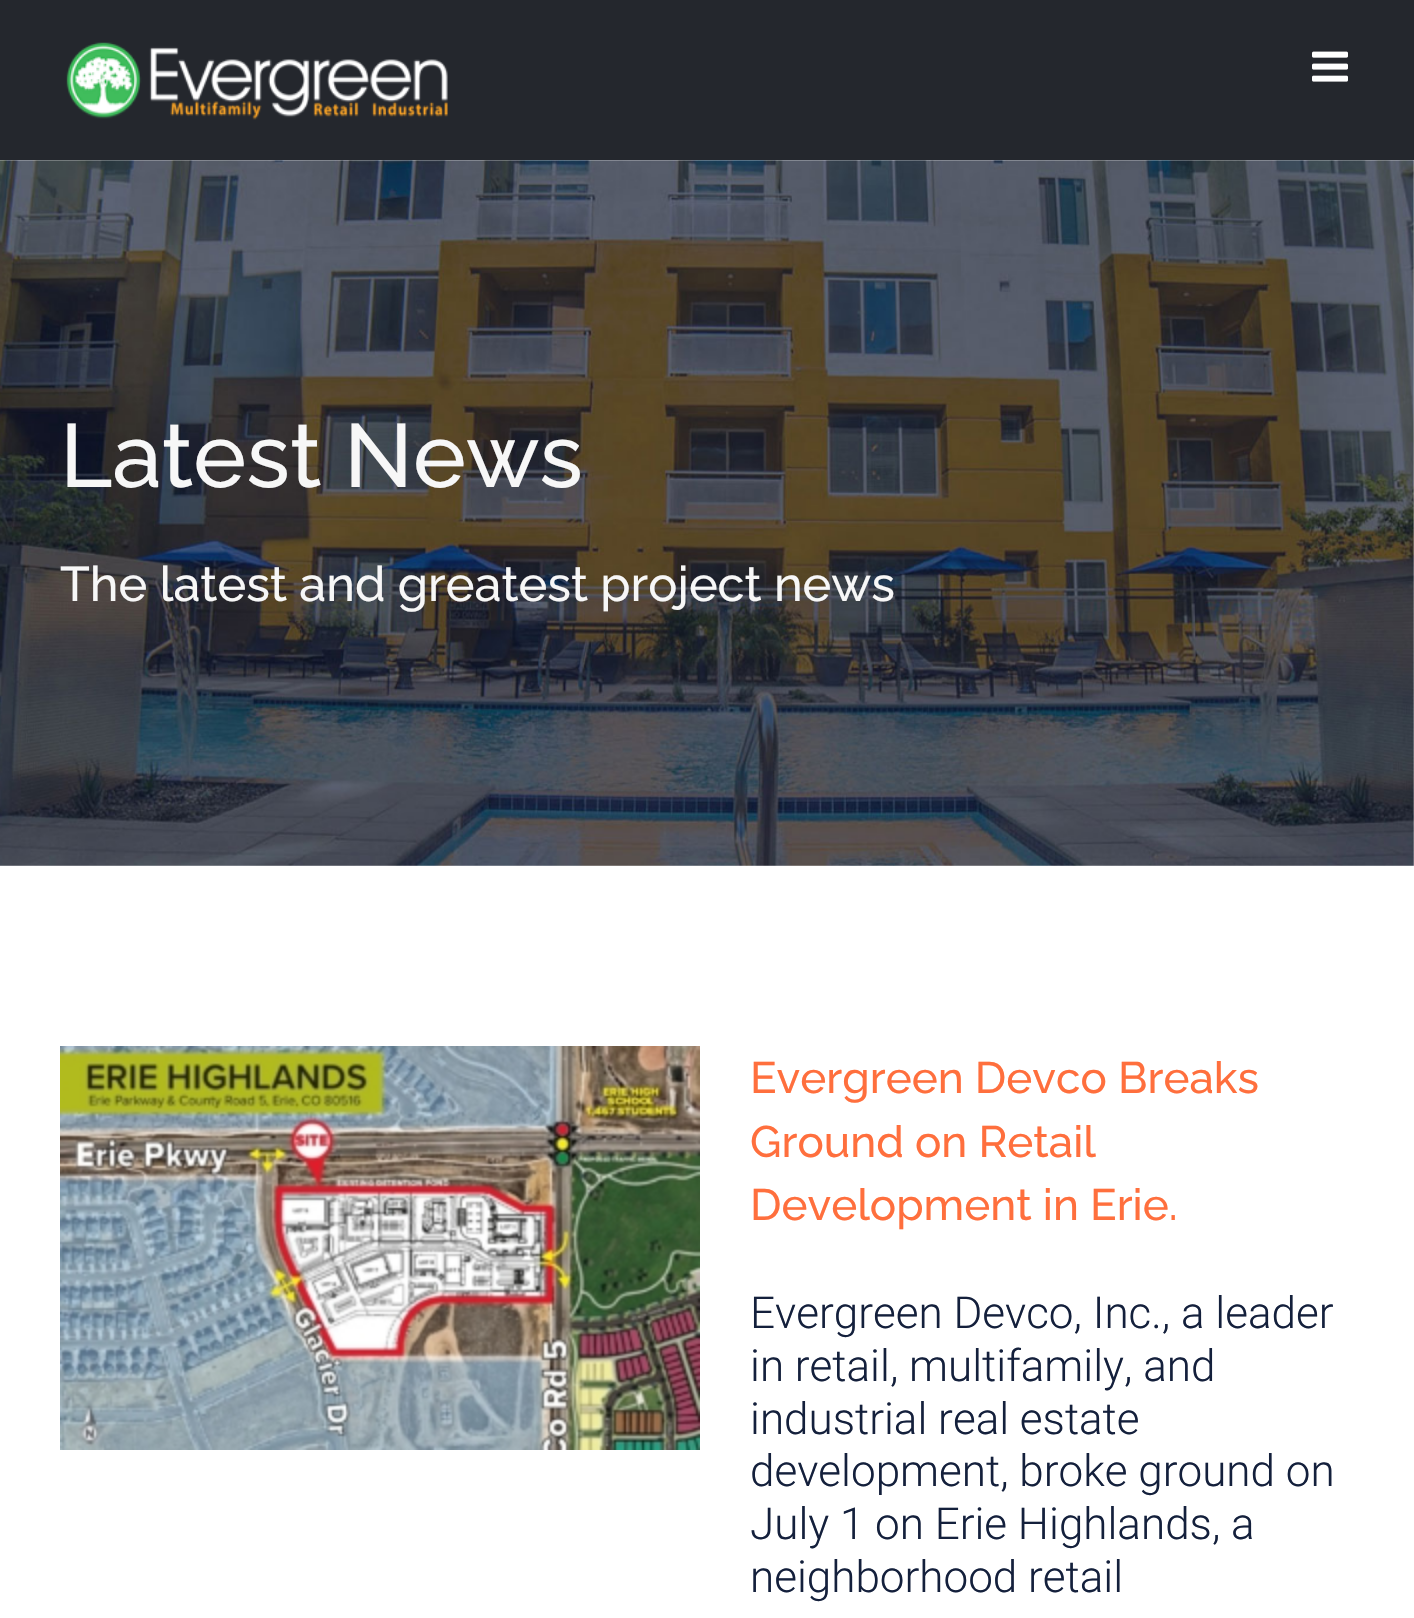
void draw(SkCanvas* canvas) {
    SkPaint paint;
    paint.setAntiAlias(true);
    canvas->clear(0xFFFFFFFF);
    paint.setColor(0xFF24272D);
    canvas->drawRect(SkRect::MakeXYWH(0, 0, 1414, 160), paint);
    canvas->drawImageRect(SkImages::DeferredFromEncodedData(SkData::MakeFromFileName("img1.png")), SkRect::MakeXYWH(66, 42, 382, 78), SkSamplingOptions());
    canvas->drawImageRect(SkImages::DeferredFromEncodedData(SkData::MakeFromFileName("img2.png")), SkRect::MakeXYWH(1312, 51, 36, 31), SkSamplingOptions());
    canvas->drawImageRect(SkImages::DeferredFromEncodedData(SkData::MakeFromFileName("img3.png")), SkRect::MakeXYWH(0, 160, 1414, 706), SkSamplingOptions());
    SkFont font1(fontMgr->matchFamilyStyle("Raleway", SkFontStyle(100, SkFontStyle::kNormal_Width, SkFontStyle::kUpright_Slant)), 89.5f);
    font1.setSubpixel(true);
    paint.setColor(0xFFF7F7F7);
    canvas->drawString("Latest News", 60, 487, font1, paint);
    SkFont font2(fontMgr->matchFamilyStyle("Raleway", SkFontStyle(100, SkFontStyle::kNormal_Width, SkFontStyle::kUpright_Slant)), 48.6f);
    font2.setSubpixel(true);
    canvas->drawString("The latest and greatest project news", 60, 601, font2, paint);
    canvas->drawImageRect(SkImages::DeferredFromEncodedData(SkData::MakeFromFileName("img4.png")), SkRect::MakeXYWH(60, 1046, 640, 404), SkSamplingOptions());
    SkFont font3(fontMgr->matchFamilyStyle("Raleway", SkFontStyle(100, SkFontStyle::kNormal_Width, SkFontStyle::kUpright_Slant)), 44);
    font3.setSubpixel(true);
    paint.setColor(0xFFFF6F3D);
    canvas->drawString("Evergreen Devco Breaks", 750, 1093, font3, paint);
    canvas->drawString("Ground on Retail", 750, 1157, font3, paint);
    canvas->drawString("Development in Erie.", 750, 1220, font3, paint);
    SkFont font4(fontMgr->matchFamilyStyle("Roboto", SkFontStyle(300, SkFontStyle::kNormal_Width, SkFontStyle::kUpright_Slant)), 44);
    font4.setSubpixel(true);
    paint.setColor(0xFF14203C);
    canvas->drawString("Evergreen Devco, Inc., a leader", 750, 1328, font4, paint);
    canvas->drawString("in retail, multifamily, and", 750, 1381, font4, paint);
    canvas->drawString("industrial real estate", 750, 1434, font4, paint);
    canvas->drawString("development, broke ground on", 750, 1486, font4, paint);
    canvas->drawString("July 1 on Erie Highlands, a", 750, 1539, font4, paint);
    canvas->drawString("neighborhood retail", 750, 1592, font4, paint);
}
